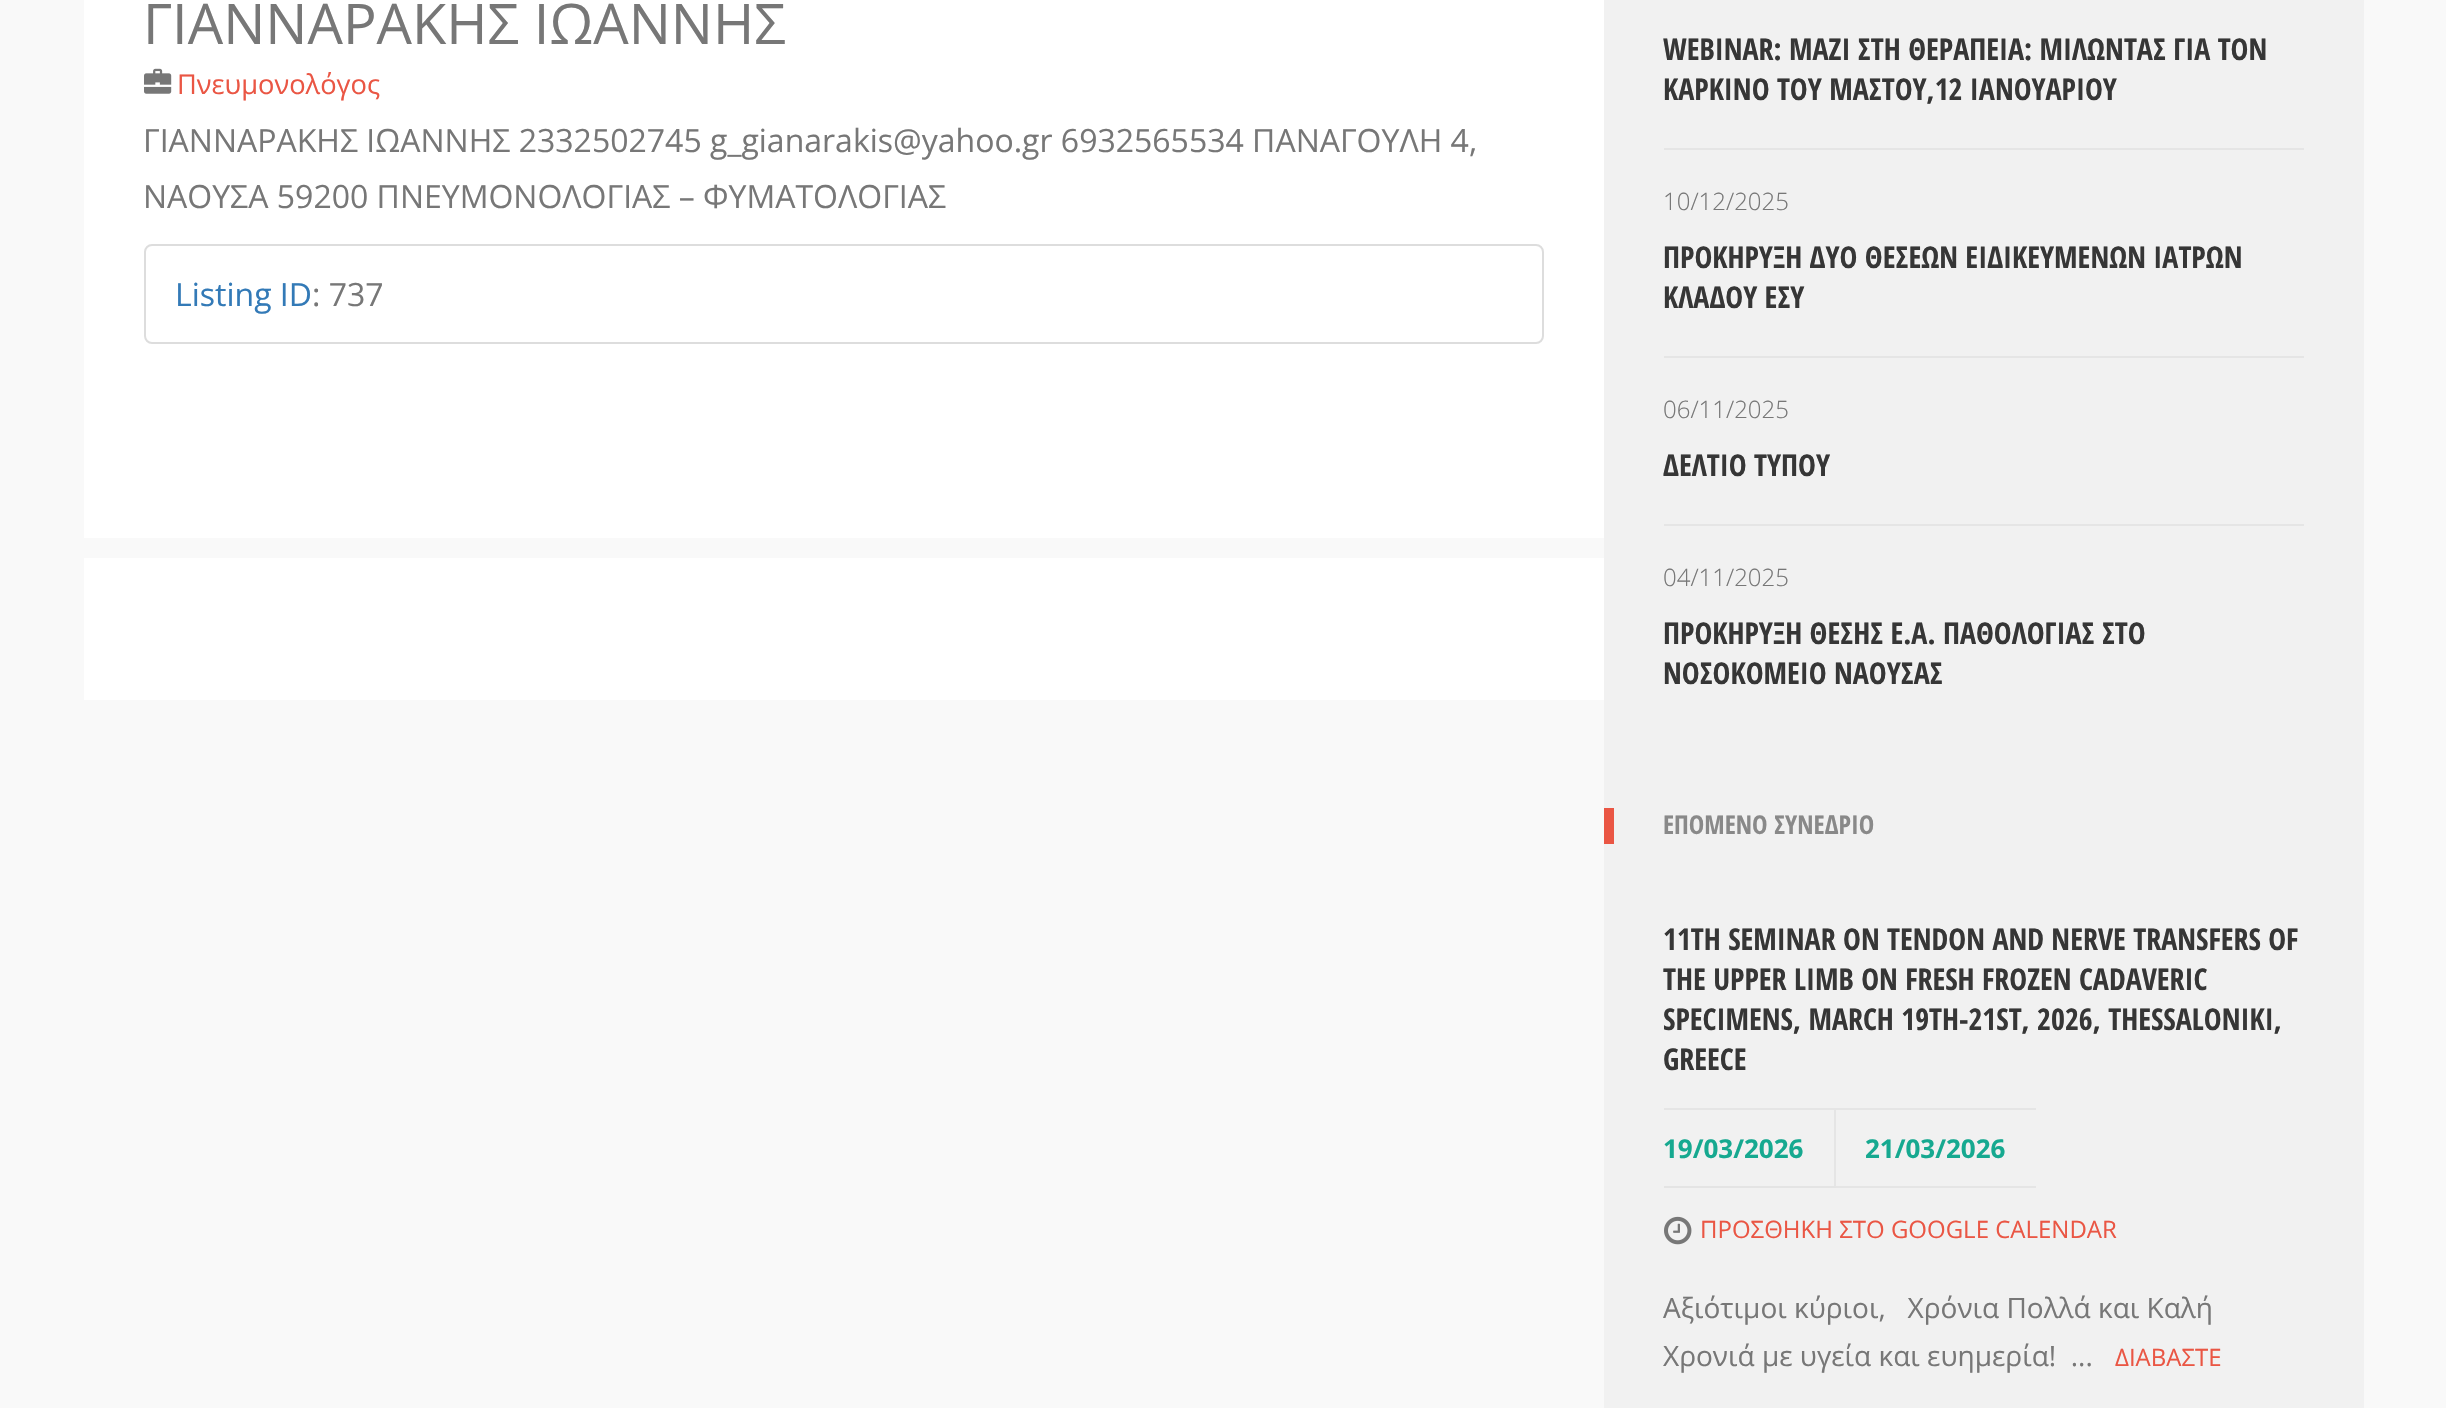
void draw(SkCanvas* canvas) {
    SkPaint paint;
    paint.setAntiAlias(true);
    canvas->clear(0xFFF9F9F9);
    paint.setColor(0xFFFFFFFF);
    canvas->drawRect(SkRect::MakeXYWH(84, 0, 1520, 700), paint);
    SkFont font1(fontMgr->matchFamilyStyle("Open Sans", SkFontStyle::Normal()), 56);
    font1.setSubpixel(true);
    paint.setColor(0xFF777777);
    canvas->drawString("ΓΙΑΝΝΑΡΑΚΗΣ ΙΩΑΝΝΗΣ", 143, 44, font1, paint);
    canvas->drawImageRect(SkImages::DeferredFromEncodedData(SkData::MakeFromFileName("img1.png")), SkRect::MakeXYWH(144, 68, 28, 26), SkSamplingOptions());
    SkFont font2(fontMgr->matchFamilyStyle("Open Sans", SkFontStyle::Normal()), 27.25f);
    font2.setSubpixel(true);
    paint.setColor(0xFFEA5644);
    canvas->drawString("Πνευμονολόγος", 177, 94, font2, paint);
    SkFont font3(fontMgr->matchFamilyStyle("Open Sans", SkFontStyle::Normal()), 32);
    font3.setSubpixel(true);
    paint.setColor(0xFF777777);
    canvas->drawString("ΓΙΑΝΝΑΡΑΚΗΣ ΙΩΑΝΝΗΣ 2332502745 g_gianarakis@yahoo.gr 6932565534 ΠΑΝΑΓΟΥΛΗ 4,", 143, 152, font3, paint);
    canvas->drawString("ΝΑΟΥΣΑ 59200 ΠΝΕΥΜΟΝΟΛΟΓΙΑΣ – ΦΥΜΑΤΟΛΟΓΙΑΣ", 143, 208, font3, paint);
    paint.setStyle(SkPaint::kStroke_Style);
    paint.setStrokeWidth(2);
    paint.setColor(0xFFDDDDDD);
    canvas->drawRoundRect(SkRect::MakeXYWH(145, 245, 1398, 98), 7, 7, paint);
    paint.setStyle(SkPaint::kFill_Style);
    paint.setColor(0xFF337AB7);
    canvas->drawString("Listing ID", 175, 306, font3, paint);
    paint.setColor(0xFF777777);
    canvas->drawString(": 737", 312, 306, font3, paint);
    paint.setColor(0xFFF9F9F9);
    canvas->drawRect(SkRect::MakeXYWH(84, 538, 1520, 20), paint);
    paint.setColor(0xFFF1F1F1);
    canvas->drawRect(SkRect::MakeXYWH(1604, 0, 760, 1408), paint);
    paint.setColor(0xFFE5E5E5);
    canvas->drawRect(SkRect::MakeXYWH(1664, 148, 640, 2), paint);
    SkFont font4(fontMgr->matchFamilyStyle("Open Sans Condensed", SkFontStyle::Bold()), 30);
    font4.setSubpixel(true);
    paint.setColor(0xFF363636);
    canvas->drawString("WEBINAR: ΜΑΖΙ ΣΤΗ ΘΕΡΑΠΕΙΑ: ΜΙΛΩΝΤΑΣ ΓΙΑ ΤΟΝ", 1663, 60, font4, paint);
    canvas->drawString("ΚΑΡΚΙΝΟ ΤΟΥ ΜΑΣΤΟΥ,12 ΙΑΝΟΥΑΡΙΟΥ", 1663, 100, font4, paint);
    paint.setColor(0xFFE5E5E5);
    canvas->drawRect(SkRect::MakeXYWH(1664, 356, 640, 2), paint);
    SkFont font5(fontMgr->matchFamilyStyle("Open Sans", SkFontStyle(300, SkFontStyle::kNormal_Width, SkFontStyle::kUpright_Slant)), 24);
    font5.setSubpixel(true);
    paint.setColor(0xFF777777);
    canvas->drawString("10/12/2025", 1663, 210, font5, paint);
    paint.setColor(0xFF363636);
    canvas->drawString("ΠΡΟΚΗΡΥΞΗ ΔΥΟ ΘΕΣΕΩΝ ΕΙΔΙΚΕΥΜΕΝΩΝ ΙΑΤΡΩΝ", 1663, 268, font4, paint);
    canvas->drawString("ΚΛΑΔΟΥ ΕΣΥ", 1663, 308, font4, paint);
    paint.setColor(0xFFE5E5E5);
    canvas->drawRect(SkRect::MakeXYWH(1664, 524, 640, 2), paint);
    paint.setColor(0xFF777777);
    canvas->drawString("06/11/2025", 1663, 418, font5, paint);
    paint.setColor(0xFF363636);
    canvas->drawString("ΔΕΛΤΙΟ ΤΥΠΟΥ", 1663, 476, font4, paint);
    paint.setColor(0xFF777777);
    canvas->drawString("04/11/2025", 1663, 586, font5, paint);
    paint.setColor(0xFF363636);
    canvas->drawString("ΠΡΟΚΗΡΥΞΗ ΘΕΣΗΣ Ε.Α. ΠΑΘΟΛΟΓΙΑΣ ΣΤΟ", 1663, 644, font4, paint);
    canvas->drawString("ΝΟΣΟΚΟΜΕΙΟ ΝΑΟΥΣΑΣ", 1663, 684, font4, paint);
    paint.setColor(0xFFEA5644);
    canvas->drawRect(SkRect::MakeXYWH(1604, 808, 10, 36), paint);
    SkFont font6(fontMgr->matchFamilyStyle("Open Sans Condensed", SkFontStyle::Bold()), 26);
    font6.setSubpixel(true);
    paint.setColor(0xFF898989);
    canvas->drawString("ΕΠΟΜΕΝΟ ΣΥΝΕΔΡΙΟ", 1663, 834, font6, paint);
    paint.setColor(0xFF363636);
    canvas->drawString("11TH SEMINAR ON TENDON AND NERVE TRANSFERS OF", 1663, 950, font4, paint);
    canvas->drawString("THE UPPER LIMB ON FRESH FROZEN CADAVERIC", 1663, 990, font4, paint);
    canvas->drawString("SPECIMENS, MARCH 19TH-21ST, 2026, THESSALONIKI,", 1663, 1030, font4, paint);
    canvas->drawString("GREECE", 1663, 1070, font4, paint);
    paint.setColor(0xFFE5E5E5);
    canvas->drawPath(SkPathBuilder().moveTo(1664, 1108).lineTo(1836, 1108).lineTo(1834, 1110).lineTo(1664, 1110).close().detach(), paint);
    paint.setColor(0x0D000000);
    canvas->drawPath(SkPathBuilder().moveTo(1836, 1108).lineTo(1836, 1188).lineTo(1834, 1186).lineTo(1834, 1110).close().detach(), paint);
    canvas->drawPath(SkPathBuilder().moveTo(1836, 1188).lineTo(1664, 1188).lineTo(1664, 1186).lineTo(1834, 1186).close().detach(), paint);
    SkFont font7(fontMgr->matchFamilyStyle("Open Sans", SkFontStyle::Bold()), 26);
    font7.setSubpixel(true);
    paint.setColor(0xFF16A990);
    canvas->drawString("19/03/2026", 1663, 1158, font7, paint);
    paint.setColor(0xFFE5E5E5);
    canvas->drawRect(SkRect::MakeXYWH(1836, 1108, 200, 2), paint);
    canvas->drawRect(SkRect::MakeXYWH(1836, 1186, 200, 2), paint);
    paint.setColor(0xFF16A990);
    canvas->drawString("21/03/2026", 1865, 1158, font7, paint);
    canvas->drawImageRect(SkImages::DeferredFromEncodedData(SkData::MakeFromFileName("img2.png")), SkRect::MakeXYWH(1664, 1216, 28, 29), SkSamplingOptions());
    SkFont font8(fontMgr->matchFamilyStyle("Open Sans", SkFontStyle::Normal()), 24);
    font8.setSubpixel(true);
    paint.setColor(0xFFEA5644);
    canvas->drawString("ΠΡΟΣΘΗΚΗ ΣΤΟ GOOGLE CALENDAR", 1700, 1238, font8, paint);
    SkFont font9(fontMgr->matchFamilyStyle("Open Sans", SkFontStyle::Normal()), 28);
    font9.setSubpixel(true);
    paint.setColor(0xFF777777);
    canvas->drawString("Αξιότιμοι κύριοι,   Χρόνια Πολλά και Καλή", 1663, 1318, font9, paint);
    canvas->drawString("Χρονιά με υγεία και ευημερία!  ...", 1663, 1366, font9, paint);
    paint.setColor(0xFFEA5644);
    canvas->drawString("ΔΙΑΒΑΣΤΕ", 2115, 1366, font8, paint);
}
